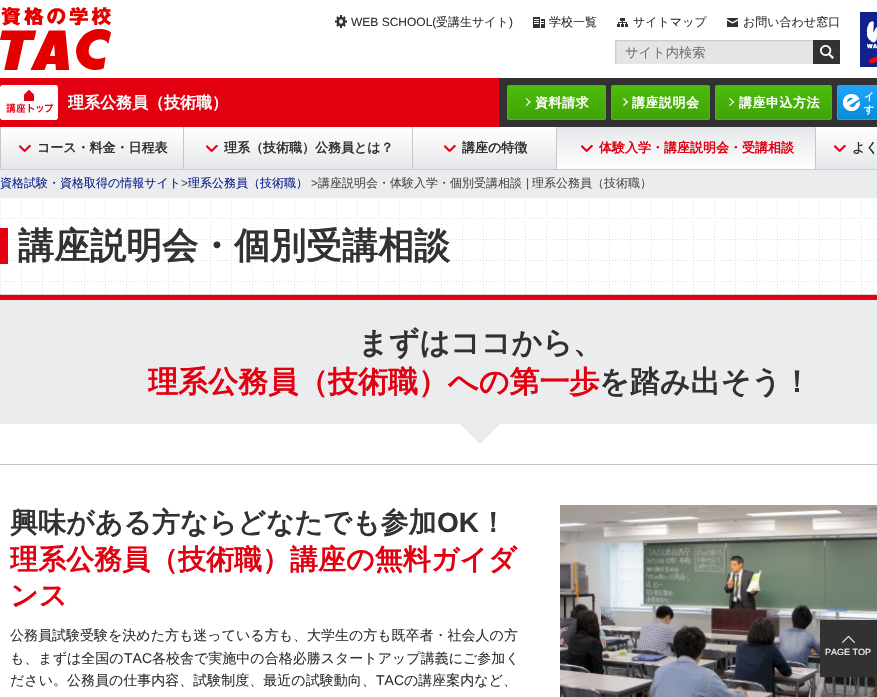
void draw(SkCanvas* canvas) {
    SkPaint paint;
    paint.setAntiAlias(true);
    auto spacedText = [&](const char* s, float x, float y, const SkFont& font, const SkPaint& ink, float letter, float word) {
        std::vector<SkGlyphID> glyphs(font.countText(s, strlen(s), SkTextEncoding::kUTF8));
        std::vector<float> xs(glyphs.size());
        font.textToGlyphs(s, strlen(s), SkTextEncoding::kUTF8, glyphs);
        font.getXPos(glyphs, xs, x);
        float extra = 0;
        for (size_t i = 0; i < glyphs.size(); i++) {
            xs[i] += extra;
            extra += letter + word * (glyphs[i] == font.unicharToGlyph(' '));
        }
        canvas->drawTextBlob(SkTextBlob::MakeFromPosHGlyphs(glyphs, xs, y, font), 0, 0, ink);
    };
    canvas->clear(0xFFFFFFFF);
    canvas->drawImageRect(SkImages::DeferredFromEncodedData(SkData::MakeFromFileName("img1.png")), SkRect::MakeXYWH(0, 7, 111, 63), SkSamplingOptions());
    canvas->drawImageRect(SkImages::DeferredFromEncodedData(SkData::MakeFromFileName("img2.png")), SkRect::MakeXYWH(335, 15, 12, 13), SkSamplingOptions());
    SkFont font1(fontMgr->matchFamilyStyle("Liberation Sans", SkFontStyle::Normal()), 12);
    font1.setSubpixel(true);
    paint.setColor(0xFF323232);
    canvas->drawString("WEB SCHOOL(", 351, 26, font1, paint);
    SkFont font2(fontMgr->matchFamilyStyle("WenQuanYi Zen Hei", SkFontStyle(500, SkFontStyle::kNormal_Width, SkFontStyle::kUpright_Slant)), 12);
    font2.setSubpixel(true);
    canvas->drawString("受講生サイト", 436, 26, font2, paint);
    canvas->drawString(")", 509, 26, font1, paint);
    canvas->drawImageRect(SkImages::DeferredFromEncodedData(SkData::MakeFromFileName("img3.png")), SkRect::MakeXYWH(533, 17, 12, 11), SkSamplingOptions());
    canvas->drawString("学校一覧", 549, 26, font2, paint);
    canvas->drawImageRect(SkImages::DeferredFromEncodedData(SkData::MakeFromFileName("img4.png")), SkRect::MakeXYWH(617, 18, 11, 9), SkSamplingOptions());
    canvas->drawString("サイトマップ", 633, 26, font2, paint);
    canvas->drawImageRect(SkImages::DeferredFromEncodedData(SkData::MakeFromFileName("img5.png")), SkRect::MakeXYWH(727, 18, 11, 9), SkSamplingOptions());
    canvas->drawString("お問い合わせ窓口", 743, 26, font2, paint);
    canvas->drawImageRect(SkImages::DeferredFromEncodedData(SkData::MakeFromFileName("img6.png")), SkRect::MakeXYWH(615, 40, 198, 24), SkSamplingOptions());
    SkFont font3(fontMgr->matchFamilyStyle("WenQuanYi Zen Hei", SkFontStyle(500, SkFontStyle::kNormal_Width, SkFontStyle::kUpright_Slant)), 13.25f);
    font3.setSubpixel(true);
    paint.setColor(0xFF757575);
    canvas->drawString("サイト内検索", 625, 57, font3, paint);
    canvas->drawImageRect(SkImages::DeferredFromEncodedData(SkData::MakeFromFileName("img7.png")), SkRect::MakeXYWH(813, 40, 27, 24), SkSamplingOptions());
    canvas->drawImageRect(SkImages::DeferredFromEncodedData(SkData::MakeFromFileName("img8.png")), SkRect::MakeXYWH(860, 12, 17, 55), SkSamplingOptions());
    paint.setColor(0xFFE20011);
    canvas->drawRect(SkRect::MakeXYWH(0, 78, 499, 49), paint);
    canvas->drawImageRect(SkImages::DeferredFromEncodedData(SkData::MakeFromFileName("img9.png")), SkRect::MakeXYWH(0, 85, 58, 35), SkSamplingOptions());
    SkFont font4(fontMgr->matchFamilyStyle("WenQuanYi Zen Hei", SkFontStyle::Bold()), 16);
    font4.setSubpixel(true);
    paint.setColor(0xFFFFFFFF);
    canvas->drawString("理系公務員（技術職）", 68, 108, font4, paint);
    paint.setColor(0xFF323232);
    canvas->drawRect(SkRect::MakeXYWH(499, 78, 378, 49), paint);
    canvas->save();
    canvas->clipPath(SkPathBuilder().moveTo(509, 85).lineTo(604, 85).cubicTo(605, 85, 606, 86, 606, 87).lineTo(606, 118).cubicTo(606, 119, 605, 120, 604, 120).lineTo(509, 120).cubicTo(508, 120, 507, 119, 507, 118).lineTo(507, 87).cubicTo(507, 86, 508, 85, 509, 85).close().detach(), true);
    {
        const SkColor colors[] = {0xFF4DBC0A, 0xFF42A207};
        const float stops[] = {0, 1};
        const SkPoint ends[] = {{557, 86}, {557, 119}};
        paint.setShader(SkGradientShader::MakeLinear(ends, colors, stops, 2, SkTileMode::kClamp));
        paint.setAlpha(255);
    }
    canvas->drawRect(SkRect::MakeXYWH(507, 86, 99, 33), paint);
    canvas->restore();
    paint.setShader(nullptr);
    paint.setColor(0xFF4CB70C);
    canvas->drawPath(SkPathBuilder(SkPathFillType::kEvenOdd).moveTo(509, 85).cubicTo(508, 85, 507, 86, 507, 87).lineTo(507, 118).cubicTo(507, 119, 508, 120, 509, 120).lineTo(604, 120).cubicTo(605, 120, 606, 119, 606, 118).lineTo(606, 87).cubicTo(606, 86, 605, 85, 604, 85).close().moveTo(508, 86).lineTo(508, 119).lineTo(605, 119).lineTo(605, 86).close().detach(), paint);
    paint.setColor(0xFFFFFFFF);
    canvas->drawPath(SkPathBuilder().moveTo(526.5f, 98).lineTo(530.5f, 102).lineTo(530, 103).lineTo(525.5f, 98.5f).close().detach(), paint);
    canvas->drawPath(SkPathBuilder().moveTo(530, 101).lineTo(530.5f, 102).lineTo(526.5f, 106).lineTo(525.5f, 105.5f).close().detach(), paint);
    SkFont font5(fontMgr->matchFamilyStyle("WenQuanYi Zen Hei", SkFontStyle::Bold()), 13);
    font5.setSubpixel(true);
    spacedText("資料請求", 535, 107, font5, paint, 0.5f, 0);
    canvas->save();
    canvas->clipPath(SkPathBuilder().moveTo(613, 85).lineTo(708, 85).cubicTo(709, 85, 710, 86, 710, 87).lineTo(710, 118).cubicTo(710, 119, 709, 120, 708, 120).lineTo(613, 120).cubicTo(612, 120, 611, 119, 611, 118).lineTo(611, 87).cubicTo(611, 86, 612, 85, 613, 85).close().detach(), true);
    {
        const SkColor colors[] = {0xFF4DBC0A, 0xFF42A207};
        const float stops[] = {0, 1};
        const SkPoint ends[] = {{661, 86}, {661, 119}};
        paint.setShader(SkGradientShader::MakeLinear(ends, colors, stops, 2, SkTileMode::kClamp));
        paint.setAlpha(255);
    }
    canvas->drawRect(SkRect::MakeXYWH(611, 86, 99, 33), paint);
    canvas->restore();
    paint.setShader(nullptr);
    paint.setColor(0xFF4CB70C);
    canvas->drawPath(SkPathBuilder(SkPathFillType::kEvenOdd).moveTo(613, 85).cubicTo(612, 85, 611, 86, 611, 87).lineTo(611, 118).cubicTo(611, 119, 612, 120, 613, 120).lineTo(708, 120).cubicTo(709, 120, 710, 119, 710, 118).lineTo(710, 87).cubicTo(710, 86, 709, 85, 708, 85).close().moveTo(612, 86).lineTo(612, 119).lineTo(709, 119).lineTo(709, 86).close().detach(), paint);
    paint.setColor(0xFFFFFFFF);
    canvas->drawPath(SkPathBuilder().moveTo(624, 98).lineTo(628, 102).lineTo(627, 103).lineTo(623, 98.5f).close().detach(), paint);
    canvas->drawPath(SkPathBuilder().moveTo(627, 101).lineTo(628, 102).lineTo(624, 106).lineTo(623, 105.5f).close().detach(), paint);
    spacedText("講座説明会", 632, 107, font5, paint, 0.5f, 0);
    canvas->save();
    canvas->clipPath(SkPathBuilder().moveTo(717, 85).lineTo(830, 85).cubicTo(831, 85, 832, 86, 832, 87).lineTo(832, 118).cubicTo(832, 119, 831, 120, 830, 120).lineTo(717, 120).cubicTo(716, 120, 715, 119, 715, 118).lineTo(715, 87).cubicTo(715, 86, 716, 85, 717, 85).close().detach(), true);
    {
        const SkColor colors[] = {0xFF4DBC0A, 0xFF42A207};
        const float stops[] = {0, 1};
        const SkPoint ends[] = {{774, 86}, {774, 119}};
        paint.setShader(SkGradientShader::MakeLinear(ends, colors, stops, 2, SkTileMode::kClamp));
        paint.setAlpha(255);
    }
    canvas->drawRect(SkRect::MakeXYWH(715, 86, 117, 33), paint);
    canvas->restore();
    paint.setShader(nullptr);
    paint.setColor(0xFF4CB70C);
    canvas->drawPath(SkPathBuilder(SkPathFillType::kEvenOdd).moveTo(717, 85).cubicTo(716, 85, 715, 86, 715, 87).lineTo(715, 118).cubicTo(715, 119, 716, 120, 717, 120).lineTo(830, 120).cubicTo(831, 120, 832, 119, 832, 118).lineTo(832, 87).cubicTo(832, 86, 831, 85, 830, 85).close().moveTo(716, 86).lineTo(716, 119).lineTo(831, 119).lineTo(831, 86).close().detach(), paint);
    paint.setColor(0xFFFFFFFF);
    canvas->drawPath(SkPathBuilder().moveTo(730, 98).lineTo(734, 102).lineTo(733.5f, 103).lineTo(729, 98.5f).close().detach(), paint);
    canvas->drawPath(SkPathBuilder().moveTo(733.5f, 101).lineTo(734, 102).lineTo(730, 106).lineTo(729, 105.5f).close().detach(), paint);
    spacedText("講座申込方法", 739, 107, font5, paint, 0.5f, 0);
    {
        const SkColor colors[] = {0xFF21A4FB, 0xFF068CD6};
        const float stops[] = {0, 1};
        const SkPoint ends[] = {{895, 86}, {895, 119}};
        paint.setShader(SkGradientShader::MakeLinear(ends, colors, stops, 2, SkTileMode::kClamp));
        paint.setAlpha(255);
    }
    canvas->drawRect(SkRect::MakeXYWH(837, 86, 40, 33), paint);
    paint.setShader(nullptr);
    paint.setColor(0xFF21A4FB);
    canvas->drawPath(SkPathBuilder(SkPathFillType::kEvenOdd).moveTo(839, 85).cubicTo(838, 85, 837, 86, 837, 87).lineTo(837, 118).cubicTo(837, 119, 838, 120, 839, 120).lineTo(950, 120).cubicTo(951, 120, 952, 119, 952, 118).lineTo(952, 87).cubicTo(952, 86, 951, 85, 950, 85).close().moveTo(838, 86).lineTo(838, 119).lineTo(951, 119).lineTo(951, 86).close().detach(), paint);
    canvas->drawImageRect(SkImages::DeferredFromEncodedData(SkData::MakeFromFileName("img10.png")), SkRect::MakeXYWH(843, 94, 17, 17), SkSamplingOptions());
    SkFont font6(fontMgr->matchFamilyStyle("WenQuanYi Zen Hei", SkFontStyle::Bold()), 10);
    font6.setSubpixel(true);
    paint.setColor(0xFFFFFFFF);
    canvas->drawString("イ", 864, 100, font6, paint);
    canvas->drawString("す", 864, 113, font6, paint);
    {
        const SkColor colors[] = {0xFFFFFFFF, 0xFFE6E7EA};
        const float stops[] = {0, 1};
        const SkPoint ends[] = {{480, 127}, {480, 169}};
        paint.setShader(SkGradientShader::MakeLinear(ends, colors, stops, 2, SkTileMode::kClamp));
        paint.setAlpha(255);
    }
    canvas->drawRect(SkRect::MakeXYWH(1, 131, 876, 38), paint);
    paint.setShader(nullptr);
    paint.setColor(0xFFCDCDCD);
    canvas->drawRect(SkRect::MakeXYWH(0, 169, 877, 1), paint);
    paint.setColor(0xFFC6C7CC);
    canvas->drawRect(SkRect::MakeXYWH(0, 127, 1, 42), paint);
    canvas->drawImageRect(SkImages::DeferredFromEncodedData(SkData::MakeFromFileName("img11.png")), SkRect::MakeXYWH(19, 145, 12, 7), SkSamplingOptions());
    paint.setColor(0xFF323232);
    canvas->drawString("コース・料金・日程表", 37, 152, font5, paint);
    paint.setColor(0xFFC6C7CC);
    canvas->drawRect(SkRect::MakeXYWH(183, 127, 1, 42), paint);
    canvas->drawImageRect(SkImages::DeferredFromEncodedData(SkData::MakeFromFileName("img11.png")), SkRect::MakeXYWH(206, 145, 12, 7), SkSamplingOptions());
    paint.setColor(0xFF323232);
    canvas->drawString("理系（技術職）公務員とは？", 224, 152, font5, paint);
    paint.setColor(0xFFC6C7CC);
    canvas->drawRect(SkRect::MakeXYWH(412, 127, 1, 42), paint);
    canvas->drawImageRect(SkImages::DeferredFromEncodedData(SkData::MakeFromFileName("img11.png")), SkRect::MakeXYWH(444, 145, 12, 7), SkSamplingOptions());
    paint.setColor(0xFF323232);
    canvas->drawString("講座の特徴", 462, 152, font5, paint);
    paint.setColor(0xFFC6C7CC);
    canvas->drawRect(SkRect::MakeXYWH(556, 127, 1, 42), paint);
    {
        const SkColor colors[] = {0xFFE7E8EB, 0xFFFEFEFE};
        const float stops[] = {0, 1};
        const SkPoint ends[] = {{686, 127}, {686, 169}};
        paint.setShader(SkGradientShader::MakeLinear(ends, colors, stops, 2, SkTileMode::kClamp));
        paint.setAlpha(255);
    }
    canvas->drawRect(SkRect::MakeXYWH(557, 127, 258, 42), paint);
    canvas->drawImageRect(SkImages::DeferredFromEncodedData(SkData::MakeFromFileName("img12.png")), SkRect::MakeXYWH(581, 145, 12, 7), SkSamplingOptions());
    paint.setShader(nullptr);
    paint.setColor(0xFFE20011);
    canvas->drawString("体験入学・講座説明会・受講相談", 599, 152, font5, paint);
    paint.setColor(0xFFC6C7CC);
    canvas->drawRect(SkRect::MakeXYWH(815, 127, 1, 42), paint);
    canvas->drawImageRect(SkImages::DeferredFromEncodedData(SkData::MakeFromFileName("img11.png")), SkRect::MakeXYWH(834, 145, 12, 7), SkSamplingOptions());
    paint.setColor(0xFF323232);
    canvas->drawString("よく", 852, 152, font5, paint);
    paint.setColor(0xFFEBECEE);
    canvas->drawRect(SkRect::MakeXYWH(0, 170, 877, 28), paint);
    paint.setColor(0xFF0F218B);
    canvas->drawString("資格試験・資格取得の情報サイト", 0, 187, font2, paint);
    paint.setColor(0xFF4C4C4C);
    canvas->drawString(">", 181, 187, font1, paint);
    paint.setColor(0xFF0F218B);
    canvas->drawString("理系公務員（技術職）", 188, 187, font2, paint);
    paint.setColor(0xFF4C4C4C);
    canvas->drawString(">", 311, 187, font1, paint);
    canvas->drawString("講座説明会・体験入学・個別受講相談", 318, 187, font2, paint);
    canvas->drawString("|", 526, 187, font1, paint);
    canvas->drawString("理系公務員（技術職）", 532, 187, font2, paint);
    canvas->drawImageRect(SkImages::DeferredFromEncodedData(SkData::MakeFromFileName("img13.png")), SkRect::MakeXYWH(0, 200, 877, 94), SkSamplingOptions());
    paint.setColor(0xFFD3D3D3);
    canvas->drawRect(SkRect::MakeXYWH(0, 294, 877, 1), paint);
    paint.setColor(0xFFE20011);
    canvas->drawRect(SkRect::MakeXYWH(0, 228, 8, 36), paint);
    SkFont font7(fontMgr->matchFamilyStyle("WenQuanYi Zen Hei", SkFontStyle::Bold()), 36);
    font7.setSubpixel(true);
    paint.setColor(0xFF323232);
    canvas->drawString("講座説明会・個別受講相談", 18, 258, font7, paint);
    paint.setColor(0xFFEBECEE);
    canvas->drawRect(SkRect::MakeXYWH(0, 300, 877, 124), paint);
    paint.setColor(0xFFE20011);
    canvas->drawRect(SkRect::MakeXYWH(0, 295, 877, 5), paint);
    SkFont font8(fontMgr->matchFamilyStyle("WenQuanYi Zen Hei", SkFontStyle::Bold()), 30);
    font8.setSubpixel(true);
    paint.setColor(0xFF323232);
    canvas->drawString("まずはココから、", 358, 353, font8, paint);
    paint.setColor(0xFFE20011);
    canvas->drawString("理系公務員（技術職）への第一歩", 148, 392, font8, paint);
    paint.setColor(0xFF323232);
    canvas->drawString("を踏み出そう！", 599, 392, font8, paint);
    paint.setColor(0xFFEBECEE);
    canvas->drawPath(SkPathBuilder().moveTo(460, 424).lineTo(500, 424).lineTo(480, 444).close().detach(), paint);
    paint.setColor(0xFFC6C7CC);
    canvas->drawRect(SkRect::MakeXYWH(0, 464, 877, 1), paint);
    SkFont font9(fontMgr->matchFamilyStyle("WenQuanYi Zen Hei", SkFontStyle::Bold()), 28);
    font9.setSubpixel(true);
    paint.setColor(0xFF323232);
    canvas->drawString("興味がある方ならどなたでも参加", 10, 532, font9, paint);
    SkFont font10(fontMgr->matchFamilyStyle("Liberation Sans", SkFontStyle::Bold()), 28);
    font10.setSubpixel(true);
    canvas->drawString("OK", 437, 532, font10, paint);
    canvas->drawString("！", 479, 532, font9, paint);
    paint.setColor(0xFFE20011);
    canvas->drawString("理系公務員（技術職）講座の無料ガイダ", 10, 569, font9, paint);
    canvas->drawString("ンス", 10, 605, font9, paint);
    SkFont font11(fontMgr->matchFamilyStyle("WenQuanYi Zen Hei", SkFontStyle(500, SkFontStyle::kNormal_Width, SkFontStyle::kUpright_Slant)), 14);
    font11.setSubpixel(true);
    paint.setColor(0xFF323232);
    canvas->drawString("公務員試験受験を決めた方も迷っている方も、大学生の方も既卒者・社会人の方", 10, 640, font11, paint);
    canvas->drawString("も、まずは全国の", 10, 663, font11, paint);
    SkFont font12(fontMgr->matchFamilyStyle("Liberation Sans", SkFontStyle::Normal()), 14);
    font12.setSubpixel(true);
    canvas->drawString("TAC", 124, 663, font12, paint);
    canvas->drawString("各校舎で実施中の合格必勝スタートアップ講義にご参加く", 152, 663, font11, paint);
    canvas->drawString("ださい。公務員の仕事内容、試験制度、最近の試験動向、", 10, 685, font11, paint);
    canvas->drawString("TAC", 376, 685, font12, paint);
    canvas->drawString("の講座案内など、", 404, 685, font11, paint);
    canvas->drawImageRect(SkImages::DeferredFromEncodedData(SkData::MakeFromFileName("img14.png")), SkRect::MakeXYWH(560, 505, 317, 192), SkSamplingOptions());
    canvas->drawRect(SkRect::MakeXYWH(820, 620, 57, 57), paint);
    canvas->drawImageRect(SkImages::DeferredFromEncodedData(SkData::MakeFromFileName("img15.png")), SkRect::MakeXYWH(842, 636, 13, 7), SkSamplingOptions());
    SkFont font13(fontMgr->matchFamilyStyle("Liberation Sans", SkFontStyle::Normal()), 9);
    font13.setSubpixel(true);
    paint.setColor(0xFFFFFFFF);
    canvas->drawString("PAGE TOP", 825, 655, font13, paint);
}
